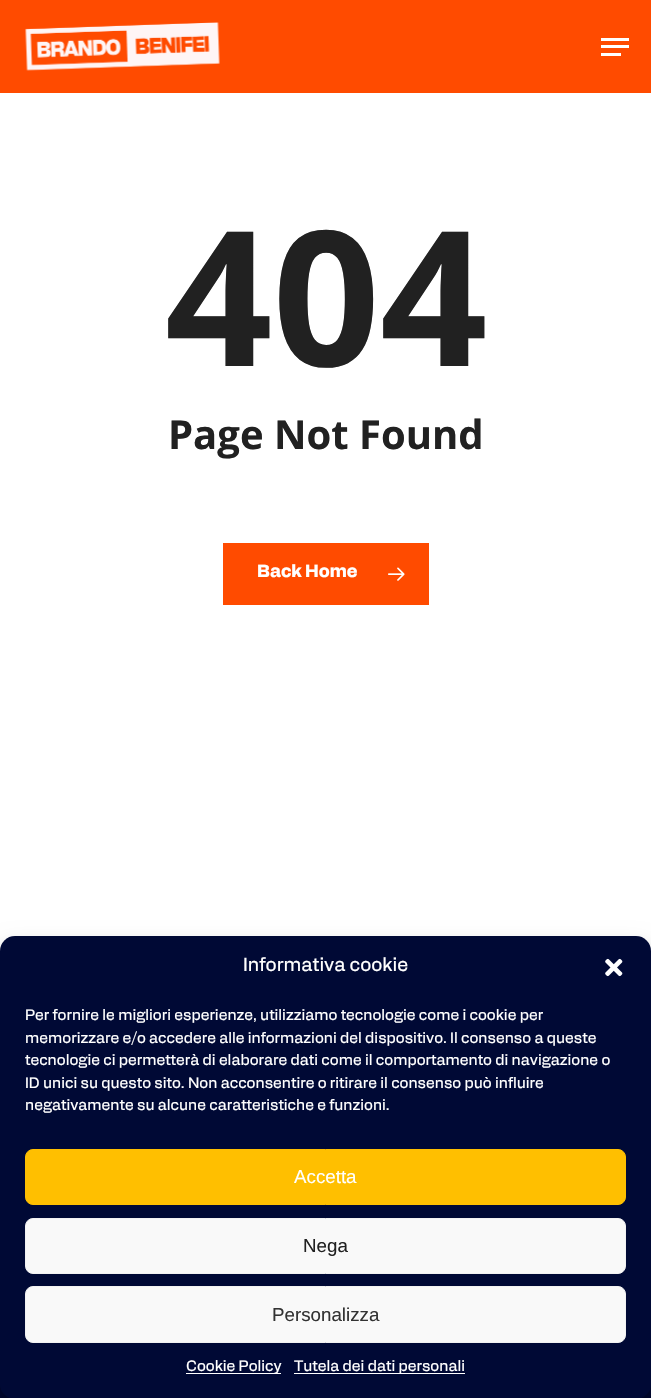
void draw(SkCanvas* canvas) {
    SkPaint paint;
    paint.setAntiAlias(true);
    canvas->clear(0xFFFFFFFF);
    paint.setColor(0xFFFF4B00);
    canvas->drawRect(SkRect::MakeXYWH(0, 0, 651, 93), paint);
    canvas->drawImageRect(SkImages::DeferredFromEncodedData(SkData::MakeFromFileName("img1.png")), SkRect::MakeXYWH(25, 22, 195, 49), SkSamplingOptions());
    paint.setColor(0xFFFFFFFF);
    canvas->drawRect(SkRect::MakeXYWH(601, 38, 28, 3), paint);
    canvas->drawRect(SkRect::MakeXYWH(601, 53, 20, 3), paint);
    canvas->drawRect(SkRect::MakeXYWH(601, 45, 28, 3), paint);
    SkFont font1(fontMgr->matchFamilyStyle("Open Sans", SkFontStyle::Bold()), 188);
    font1.setSubpixel(true);
    paint.setColor(0xFF212121);
    canvas->drawString("404", 165, 366, font1, paint);
    SkFont font2(fontMgr->matchFamilyStyle("Open Sans", SkFontStyle::Bold()), 40);
    font2.setSubpixel(true);
    canvas->drawString("Page Not Found", 168, 449, font2, paint);
    paint.setColor(0xFFFF4B00);
    canvas->drawRect(SkRect::MakeXYWH(223, 543, 206, 62), paint);
    SkFont font3(fontMgr->matchFamilyStyle("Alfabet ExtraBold", SkFontStyle(800, SkFontStyle::kNormal_Width, SkFontStyle::kUpright_Slant)), 17.5f);
    font3.setSubpixel(true);
    paint.setColor(0xFFFFFFFF);
    canvas->drawString("Back Home", 257, 577, font3, paint);
    canvas->drawImageRect(SkImages::DeferredFromEncodedData(SkData::MakeFromFileName("img2.png")), SkRect::MakeXYWH(388, 567, 17, 14), SkSamplingOptions());
    paint.setColor(0xFF000835);
    canvas->drawRect(SkRect::MakeXYWH(0, 1384, 651, 14), paint);
    paint.setColor(0x3B000000);
    paint.setMaskFilter(SkMaskFilter::MakeBlur(kNormal_SkBlurStyle, 4));
    canvas->drawRoundRect(SkRect::MakeXYWH(0, 944, 651, 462), 15, 15, paint);
    paint.setMaskFilter(nullptr);
    paint.setColor(0x30000000);
    paint.setMaskFilter(SkMaskFilter::MakeBlur(kNormal_SkBlurStyle, 12.5f));
    canvas->drawRoundRect(SkRect::MakeXYWH(0, 949, 651, 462), 15, 15, paint);
    paint.setMaskFilter(nullptr);
    paint.setColor(0xFF000935);
    canvas->drawRoundRect(SkRect::MakeXYWH(0, 936, 651, 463), 15, 15, paint);
    SkFont font4(fontMgr->matchFamilyStyle("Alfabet", SkFontStyle::Normal()), 18.75f);
    font4.setSubpixel(true);
    paint.setColor(0xFFFFFFFF);
    canvas->drawString("Informativa cookie", 243, 971, font4, paint);
    canvas->drawImageRect(SkImages::DeferredFromEncodedData(SkData::MakeFromFileName("img3.png")), SkRect::MakeXYWH(605, 958, 18, 19), SkSamplingOptions());
    SkFont font5(fontMgr->matchFamilyStyle("Alfabet", SkFontStyle::Normal()), 15);
    font5.setSubpixel(true);
    canvas->drawString("Per fornire le migliori esperienze, utilizziamo tecnologie come i cookie per", 25, 1020, font5, paint);
    canvas->drawString("memorizzare e/o accedere alle informazioni del dispositivo. Il consenso a queste", 25, 1043, font5, paint);
    canvas->drawString("tecnologie ci permetterà di elaborare dati come il comportamento di navigazione o", 25, 1065, font5, paint);
    canvas->drawString("ID unici su questo sito. Non acconsentire o ritirare il consenso può influire", 25, 1088, font5, paint);
    canvas->drawString("negativamente su alcune caratteristiche e funzioni.", 25, 1110, font5, paint);
    paint.setColor(0xFFFFBF00);
    canvas->drawRoundRect(SkRect::MakeXYWH(25.5f, 1149.5f, 600, 55), 7.5f, 7.5f, paint);
    paint.setStyle(SkPaint::kStroke_Style);
    paint.setStrokeWidth(1);
    canvas->drawRoundRect(SkRect::MakeXYWH(25.5f, 1149.5f, 600, 55), 7.5f, 7.5f, paint);
    SkFont font6(fontMgr->matchFamilyStyle("Liberation Sans", SkFontStyle::Normal()), 18.75f);
    font6.setSubpixel(true);
    paint.setStyle(SkPaint::kFill_Style);
    paint.setColor(0xFFFFFFFF);
    canvas->drawString("Accetta", 294, 1183, font6, paint);
    paint.setColor(0xFFF9F9F9);
    canvas->drawRoundRect(SkRect::MakeXYWH(25.5f, 1218.5f, 600, 55), 7.5f, 7.5f, paint);
    paint.setStyle(SkPaint::kStroke_Style);
    paint.setColor(0xFFF2F2F2);
    canvas->drawRoundRect(SkRect::MakeXYWH(25.5f, 1218.5f, 600, 55), 7.5f, 7.5f, paint);
    paint.setStyle(SkPaint::kFill_Style);
    paint.setColor(0xFF212121);
    canvas->drawString("Nega", 303, 1252, font6, paint);
    paint.setColor(0xFFF9F9F9);
    canvas->drawRoundRect(SkRect::MakeXYWH(25.5f, 1286.5f, 600, 56), 7.5f, 7.5f, paint);
    paint.setStyle(SkPaint::kStroke_Style);
    paint.setColor(0xFFF2F2F2);
    canvas->drawRoundRect(SkRect::MakeXYWH(25.5f, 1286.5f, 600, 56), 7.5f, 7.5f, paint);
    paint.setStyle(SkPaint::kFill_Style);
    paint.setColor(0xFF333333);
    canvas->drawString("Personalizza", 272, 1321, font6, paint);
    paint.setColor(0xFFFFFFFF);
    canvas->drawRect(SkRect::MakeXYWH(186, 1373, 95, 1), paint);
    canvas->drawString("Cookie Policy", 186, 1371, font5, paint);
    canvas->drawRect(SkRect::MakeXYWH(294, 1373, 171, 1), paint);
    canvas->drawString("Tutela dei dati personali", 294, 1371, font5, paint);
}
